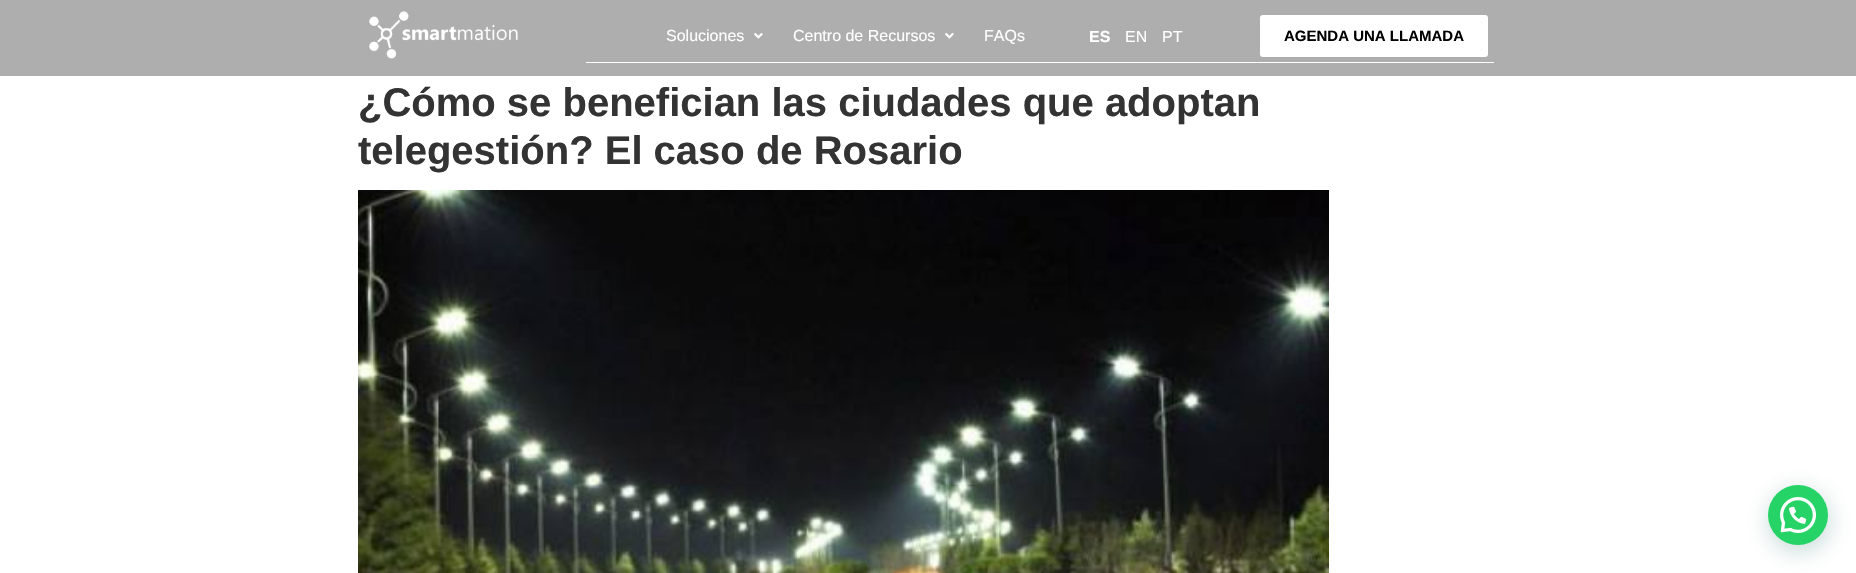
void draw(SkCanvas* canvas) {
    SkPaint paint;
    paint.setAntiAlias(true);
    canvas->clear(0xFFFFFFFF);
    paint.setColor(0xFFAEAEAE);
    canvas->drawRect(SkRect::MakeXYWH(0, 0, 1856, 76), paint);
    canvas->drawImageRect(SkImages::DeferredFromEncodedData(SkData::MakeFromFileName("img1.png")), SkRect::MakeXYWH(369, 11, 149, 48), SkSamplingOptions());
    paint.setColor(0xFFFFFFFF);
    canvas->drawRect(SkRect::MakeXYWH(586, 62, 908, 1), paint);
    SkFont font1(fontMgr->matchFamilyStyle("Liberation Sans", SkFontStyle::Normal()), 16);
    font1.setSubpixel(true);
    canvas->drawString("Soluciones", 666, 41, font1, paint);
    canvas->drawImageRect(SkImages::DeferredFromEncodedData(SkData::MakeFromFileName("img2.png")), SkRect::MakeXYWH(754, 33, 9, 6), SkSamplingOptions());
    canvas->drawString("Centro de Recursos", 793, 41, font1, paint);
    canvas->drawImageRect(SkImages::DeferredFromEncodedData(SkData::MakeFromFileName("img2.png")), SkRect::MakeXYWH(945, 33, 9, 6), SkSamplingOptions());
    canvas->drawString("FAQs", 984, 41, font1, paint);
    SkFont font2(fontMgr->matchFamilyStyle("Liberation Sans", SkFontStyle::Bold()), 16);
    font2.setSubpixel(true);
    canvas->drawString("ES", 1089, 42, font2, paint);
    canvas->drawString("EN", 1125, 42, font1, paint);
    canvas->drawString("PT", 1162, 42, font1, paint);
    canvas->drawRoundRect(SkRect::MakeXYWH(1260, 15, 228, 42), 3, 3, paint);
    SkFont font3(fontMgr->matchFamilyStyle("Liberation Sans", SkFontStyle::Bold()), 15);
    font3.setSubpixel(true);
    paint.setColor(0xFF000000);
    canvas->drawString("AGENDA UNA LLAMADA", 1284, 41, font3, paint);
    SkFont font4(fontMgr->matchFamilyStyle("Liberation Sans", SkFontStyle::Bold()), 40);
    font4.setSubpixel(true);
    paint.setColor(0xFF333333);
    canvas->drawString("¿Cómo se benefician las ciudades que adoptan", 358, 116, font4, paint);
    canvas->drawString("telegestión? El caso de Rosario", 358, 164, font4, paint);
    canvas->drawImageRect(SkImages::DeferredFromEncodedData(SkData::MakeFromFileName("img3.png")), SkRect::MakeXYWH(358, 190, 971, 383), SkSamplingOptions());
    paint.setColor(0x3D075E54);
    paint.setMaskFilter(SkMaskFilter::MakeBlur(kNormal_SkBlurStyle, 12));
    canvas->drawRoundRect(SkRect::MakeXYWH(1769, 491, 60, 60), 30, 30, paint);
    paint.setMaskFilter(nullptr);
    paint.setColor(0xFF25D366);
    canvas->drawCircle(1798, 515, 30, paint);
    canvas->drawImageRect(SkImages::DeferredFromEncodedData(SkData::MakeFromFileName("img4.png")), SkRect::MakeXYWH(1780, 497, 36, 36), SkSamplingOptions());
}
